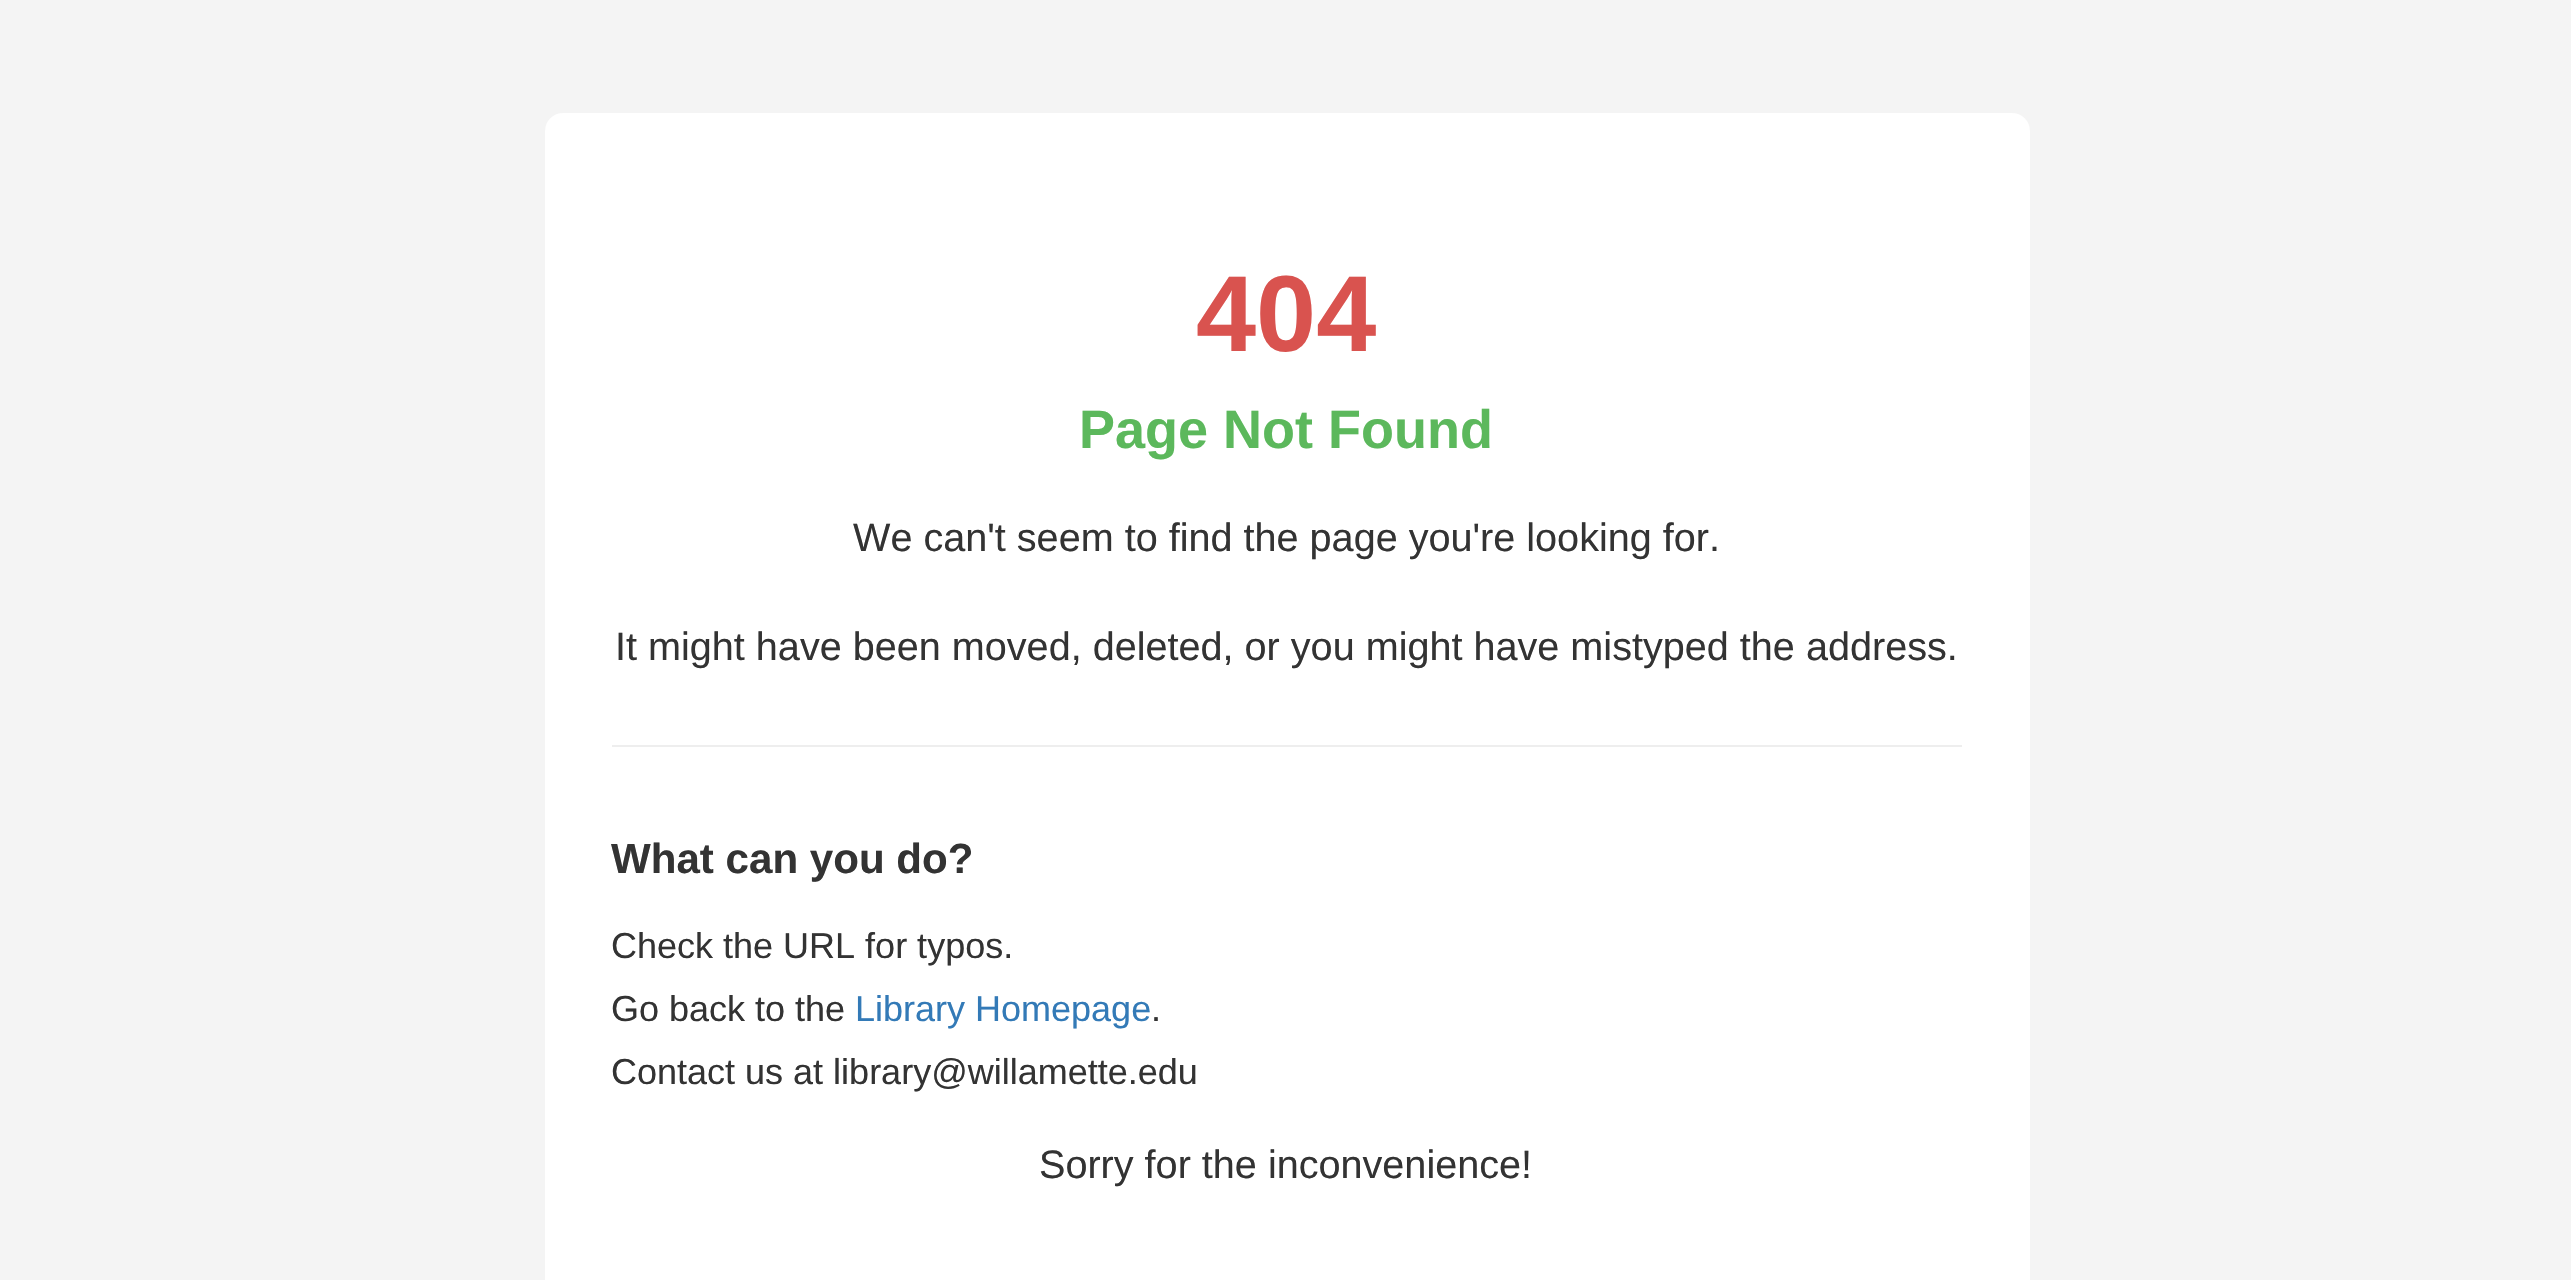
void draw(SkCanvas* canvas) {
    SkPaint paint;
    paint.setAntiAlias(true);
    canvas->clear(0xFFF4F4F4);
    paint.setColor(0xFFFFFFFF);
    canvas->drawRoundRect(SkRect::MakeXYWH(545, 113, 1485, 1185), 18, 18, paint);
    SkFont font1(fontMgr->matchFamilyStyle("Liberation Sans", SkFontStyle::Bold()), 108);
    font1.setSubpixel(true);
    paint.setColor(0xFFD9534F);
    canvas->drawString("404", 1196, 351, font1, paint);
    SkFont font2(fontMgr->matchFamilyStyle("Liberation Sans", SkFontStyle::Bold()), 54);
    font2.setSubpixel(true);
    paint.setColor(0xFF5CB85C);
    canvas->drawString("Page Not Found", 1079, 448, font2, paint);
    SkFont font3(fontMgr->matchFamilyStyle("Liberation Sans", SkFontStyle::Normal()), 39.6f);
    font3.setSubpixel(true);
    paint.setColor(0xFF333333);
    canvas->drawString("We can't seem to find the page you're looking for.", 853, 551, font3, paint);
    canvas->drawString("It might have been moved, deleted, or you might have mistyped the address.", 615, 660, font3, paint);
    paint.setColor(0xFFEEEEEE);
    canvas->drawRect(SkRect::MakeXYWH(612, 745, 1350, 2), paint);
    SkFont font4(fontMgr->matchFamilyStyle("Liberation Sans", SkFontStyle::Bold()), 42.1f);
    font4.setSubpixel(true);
    paint.setColor(0xFF333333);
    canvas->drawString("What can you do?", 611, 873, font4, paint);
    SkFont font5(fontMgr->matchFamilyStyle("Liberation Sans", SkFontStyle::Normal()), 36);
    font5.setSubpixel(true);
    canvas->drawString("Check the URL for typos.", 611, 958, font5, paint);
    canvas->drawString("Go back to the", 611, 1021, font5, paint);
    paint.setColor(0xFF337AB7);
    canvas->drawString("Library Homepage", 855, 1021, font5, paint);
    paint.setColor(0xFF333333);
    canvas->drawString(".", 1151, 1021, font5, paint);
    canvas->drawString("Contact us at library@willamette.edu", 611, 1084, font5, paint);
    canvas->drawString("Sorry for the inconvenience!", 1039, 1178, font3, paint);
}
